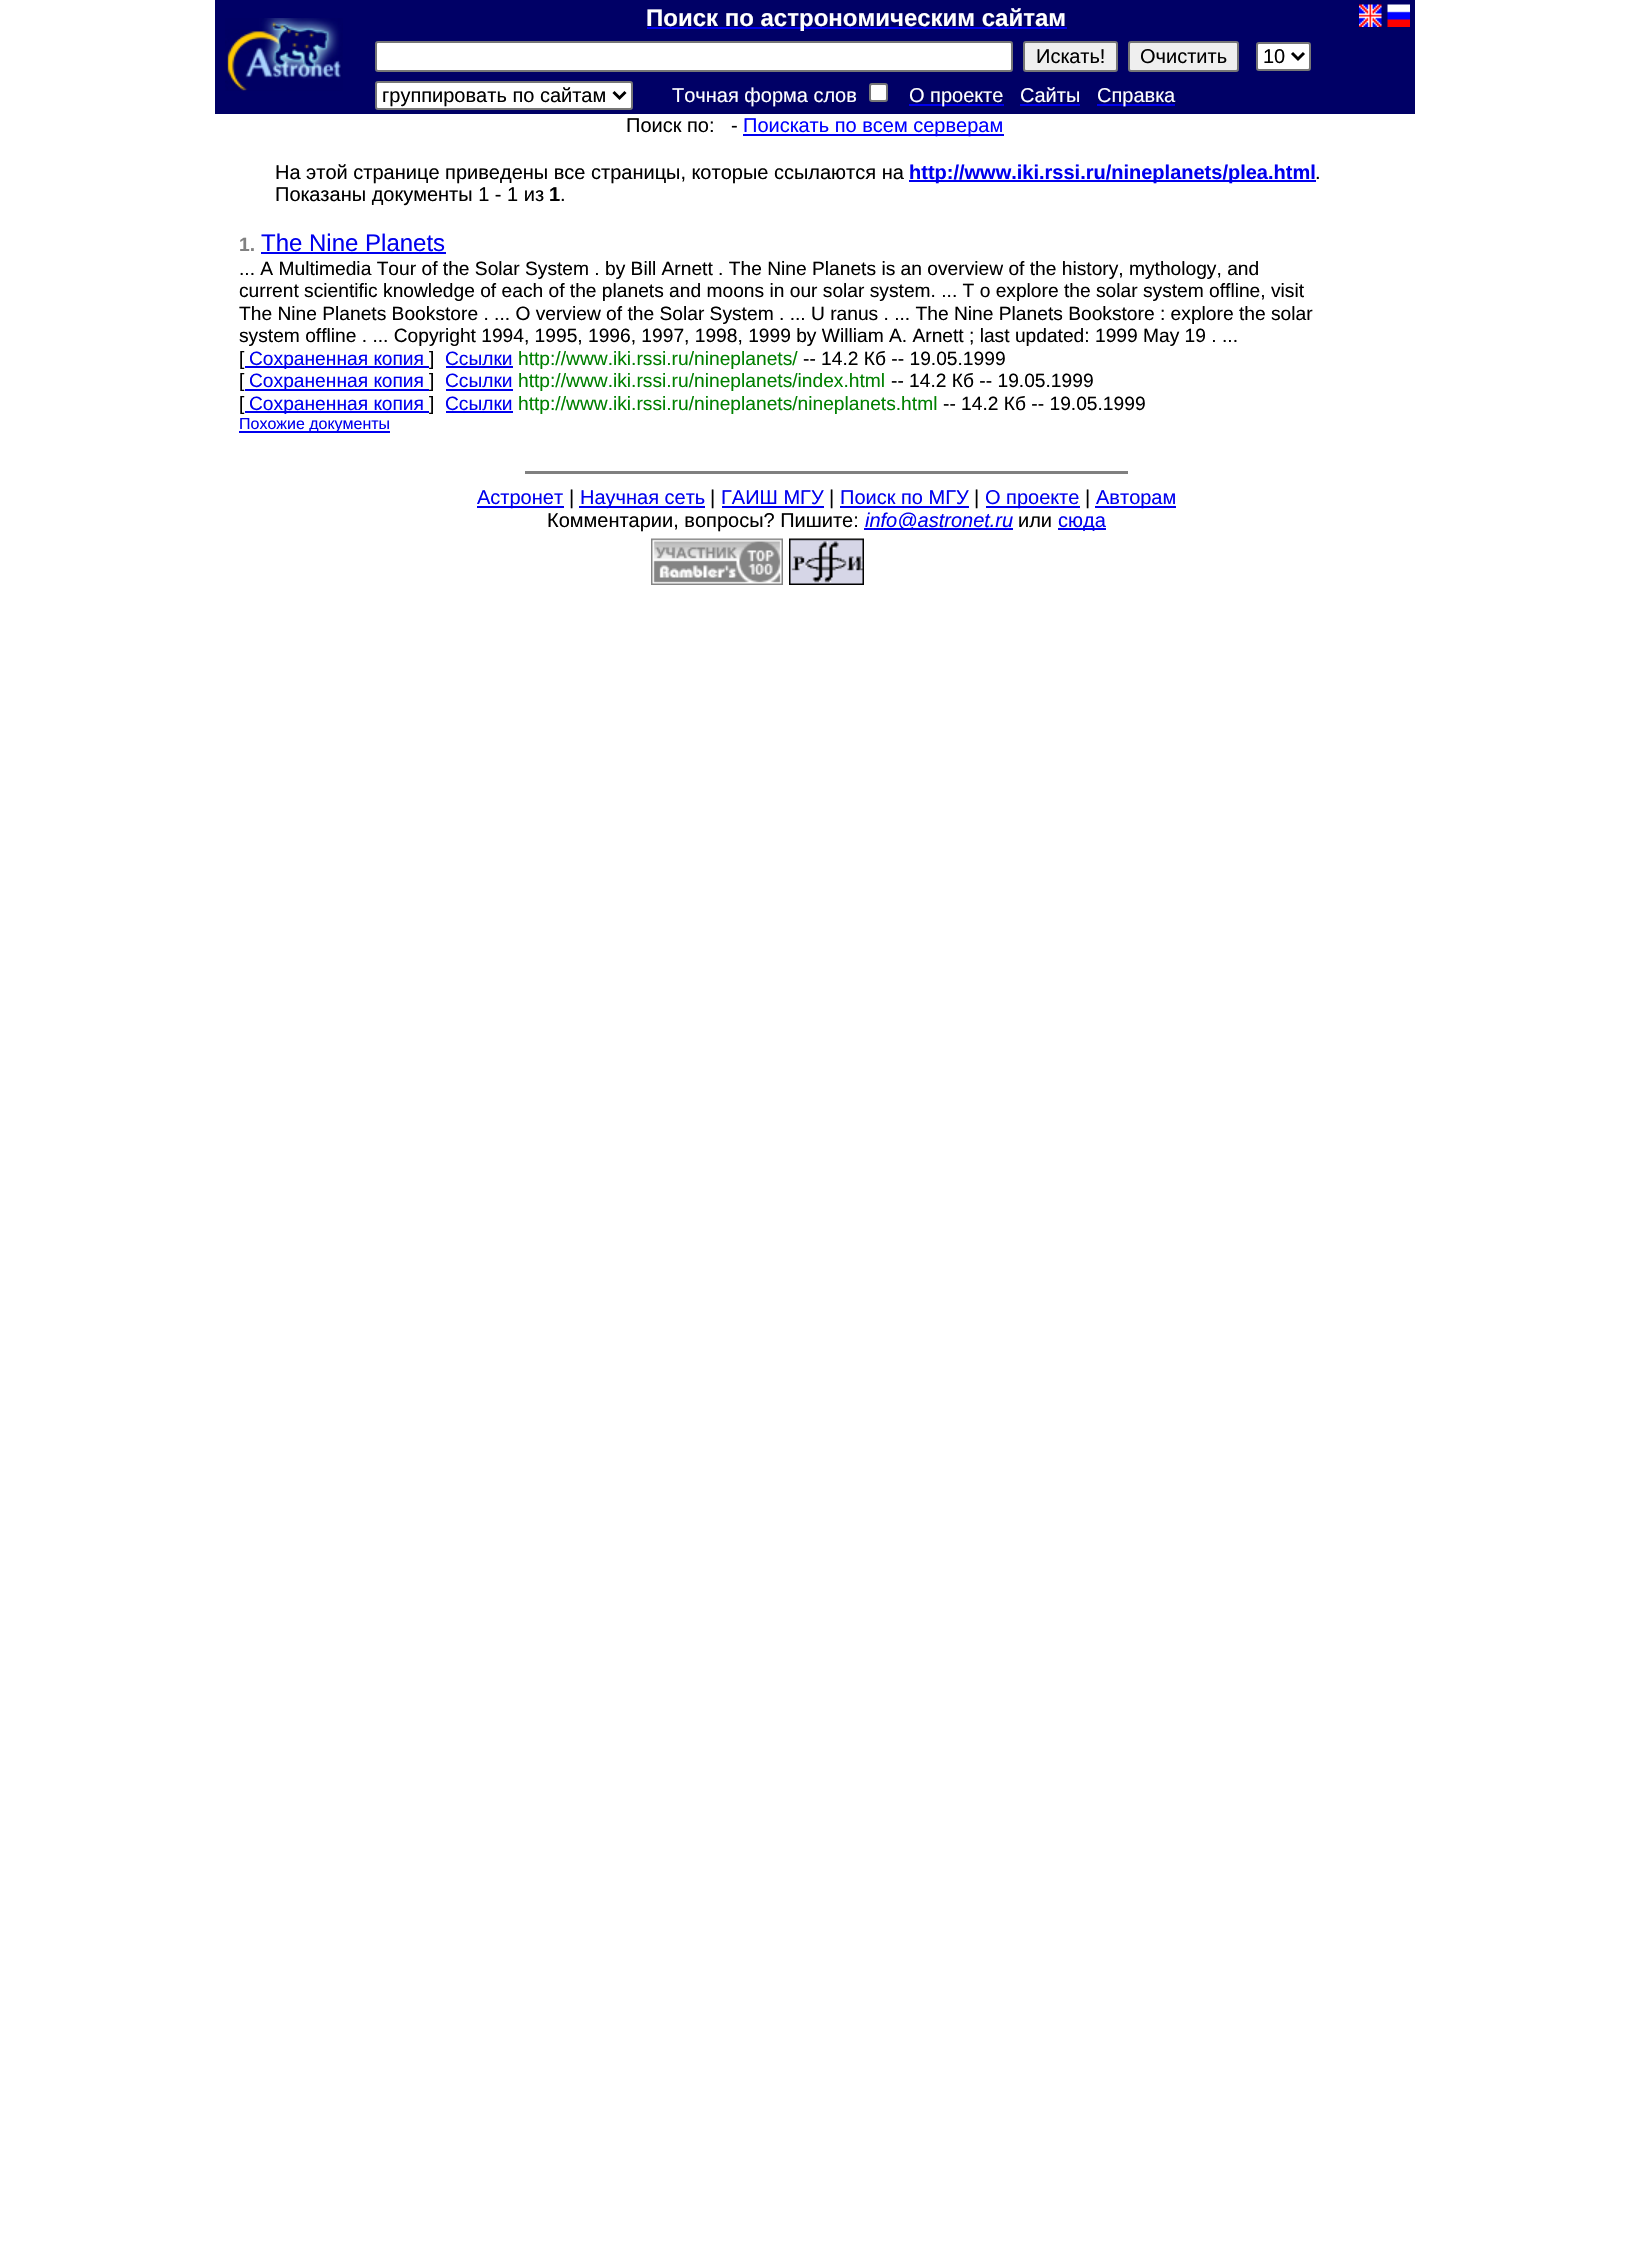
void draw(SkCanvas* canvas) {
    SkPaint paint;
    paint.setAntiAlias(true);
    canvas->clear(0xFFFFFFFF);
    paint.setColor(0xFF000066);
    canvas->drawRect(SkRect::MakeXYWH(215, 0, 1200, 114), paint);
    canvas->drawImageRect(SkImages::DeferredFromEncodedData(SkData::MakeFromFileName("img1.png")), SkRect::MakeXYWH(225, 18, 118, 73), SkSamplingOptions());
    paint.setColor(0xFF0000EE);
    canvas->drawRect(SkRect::MakeXYWH(647, 27, 420, 2), paint);
    SkFont font1(fontMgr->matchFamilyStyle("Liberation Sans", SkFontStyle::Bold()), 24);
    font1.setSubpixel(true);
    paint.setColor(0xFFFFFFFF);
    canvas->drawString("Поиск по астрономическим сайтам", 646, 26, font1, paint);
    canvas->drawImageRect(SkImages::DeferredFromEncodedData(SkData::MakeFromFileName("img2.png")), SkRect::MakeXYWH(1359, 4, 23, 23), SkSamplingOptions());
    canvas->drawImageRect(SkImages::DeferredFromEncodedData(SkData::MakeFromFileName("img3.png")), SkRect::MakeXYWH(1387, 4, 23, 23), SkSamplingOptions());
    canvas->drawRoundRect(SkRect::MakeXYWH(376, 42, 636, 29), 2, 2, paint);
    paint.setStyle(SkPaint::kStroke_Style);
    paint.setStrokeWidth(2);
    paint.setColor(0xFF767676);
    canvas->drawRoundRect(SkRect::MakeXYWH(376, 42, 636, 29), 2, 2, paint);
    paint.setStyle(SkPaint::kFill_Style);
    paint.setColor(0xFFEFEFEF);
    canvas->drawRoundRect(SkRect::MakeXYWH(1024, 42, 93, 29), 2, 2, paint);
    paint.setStyle(SkPaint::kStroke_Style);
    paint.setColor(0xFF767676);
    canvas->drawRoundRect(SkRect::MakeXYWH(1024, 42, 93, 29), 2, 2, paint);
    SkFont font2(fontMgr->matchFamilyStyle("Liberation Sans", SkFontStyle::Normal()), 20);
    font2.setSubpixel(true);
    paint.setStyle(SkPaint::kFill_Style);
    paint.setColor(0xFF000000);
    canvas->drawString("Искать!", 1036, 63, font2, paint);
    paint.setColor(0xFFEFEFEF);
    canvas->drawRoundRect(SkRect::MakeXYWH(1129, 42, 109, 29), 2, 2, paint);
    paint.setStyle(SkPaint::kStroke_Style);
    paint.setColor(0xFF767676);
    canvas->drawRoundRect(SkRect::MakeXYWH(1129, 42, 109, 29), 2, 2, paint);
    paint.setStyle(SkPaint::kFill_Style);
    paint.setColor(0xFF000000);
    canvas->drawString("Очистить", 1140, 63, font2, paint);
    paint.setColor(0xFFFFFFFF);
    canvas->drawRoundRect(SkRect::MakeXYWH(1257, 43, 53, 27), 2, 2, paint);
    paint.setStyle(SkPaint::kStroke_Style);
    paint.setColor(0xFF767676);
    canvas->drawRoundRect(SkRect::MakeXYWH(1257, 43, 53, 27), 2, 2, paint);
    paint.setStrokeWidth(3);
    paint.setColor(0xFF000000);
    canvas->drawPath(SkPathBuilder().moveTo(1292, 53).lineTo(1298, 59).lineTo(1304, 53).detach(), paint);
    paint.setStyle(SkPaint::kFill_Style);
    canvas->drawString("10", 1263, 63, font2, paint);
    paint.setColor(0xFFFFFFFF);
    canvas->drawRoundRect(SkRect::MakeXYWH(376, 82, 256, 27), 2, 2, paint);
    paint.setStyle(SkPaint::kStroke_Style);
    paint.setStrokeWidth(2);
    paint.setColor(0xFF767676);
    canvas->drawRoundRect(SkRect::MakeXYWH(376, 82, 256, 27), 2, 2, paint);
    paint.setStrokeWidth(3);
    paint.setColor(0xFF000000);
    canvas->drawPath(SkPathBuilder().moveTo(613.5f, 92).lineTo(619.5f, 98).lineTo(625.5f, 92).detach(), paint);
    paint.setStyle(SkPaint::kFill_Style);
    canvas->drawString("группировать по сайтам", 382, 102, font2, paint);
    paint.setColor(0xFFFFFFFF);
    canvas->drawString("Точная форма слов", 672, 102, font2, paint);
    canvas->drawRoundRect(SkRect::MakeXYWH(870, 84, 17, 17), 2, 2, paint);
    paint.setStyle(SkPaint::kStroke_Style);
    paint.setStrokeWidth(2);
    paint.setColor(0xFF767676);
    canvas->drawRoundRect(SkRect::MakeXYWH(870, 84, 17, 17), 2, 2, paint);
    paint.setStyle(SkPaint::kFill_Style);
    paint.setColor(0xFF0000EE);
    canvas->drawRect(SkRect::MakeXYWH(909, 104, 95, 2), paint);
    paint.setColor(0xFFFFFFFF);
    canvas->drawString("О проекте", 909, 102, font2, paint);
    canvas->drawString("Сайты", 1020, 102, font2, paint);
    paint.setColor(0xFF0000EE);
    canvas->drawRect(SkRect::MakeXYWH(1020, 104, 60, 2), paint);
    canvas->drawRect(SkRect::MakeXYWH(1097, 104, 78, 2), paint);
    paint.setColor(0xFFFFFFFF);
    canvas->drawString("Справка", 1097, 102, font2, paint);
    paint.setColor(0xFF000000);
    canvas->drawString("Поиск по:", 626, 132, font2, paint);
    canvas->drawString("-", 731, 132, font2, paint);
    paint.setColor(0xFF0000EE);
    canvas->drawRect(SkRect::MakeXYWH(743, 134, 261, 2), paint);
    paint.setColor(0xFF0000FF);
    canvas->drawString("Поискать по всем серверам", 743, 132, font2, paint);
    paint.setColor(0xFF000000);
    canvas->drawString("На этой странице приведены все страницы, которые ссылаются на", 275, 179, font2, paint);
    paint.setColor(0xFF0000EE);
    canvas->drawRect(SkRect::MakeXYWH(909, 180, 407, 2), paint);
    SkFont font3(fontMgr->matchFamilyStyle("Liberation Sans", SkFontStyle::Bold()), 20);
    font3.setSubpixel(true);
    canvas->drawString("http://www.iki.rssi.ru/nineplanets/plea.html", 909, 179, font3, paint);
    paint.setColor(0xFF000000);
    canvas->drawString(".", 1315, 179, font2, paint);
    canvas->drawString("Показаны документы 1 - 1 из", 275, 201, font2, paint);
    canvas->drawString("1", 549, 201, font3, paint);
    canvas->drawString(".", 560, 201, font2, paint);
    SkFont font4(fontMgr->matchFamilyStyle("Liberation Sans", SkFontStyle::Bold()), 19.2f);
    font4.setSubpixel(true);
    paint.setColor(0xFF818181);
    canvas->drawString("1.", 239, 251, font4, paint);
    SkFont font5(fontMgr->matchFamilyStyle("Liberation Sans", SkFontStyle::Normal()), 24);
    font5.setSubpixel(true);
    paint.setColor(0xFF0000EE);
    canvas->drawString("The Nine Planets", 261, 251, font5, paint);
    canvas->drawRect(SkRect::MakeXYWH(261, 252, 185, 2), paint);
    SkFont font6(fontMgr->matchFamilyStyle("Liberation Sans", SkFontStyle::Normal()), 19.2f);
    font6.setSubpixel(true);
    paint.setColor(0xFF000000);
    canvas->drawString("... A Multimedia Tour of the Solar System . by Bill Arnett . The Nine Planets is an overview of the history, mythology, and", 239, 275, font6, paint);
    canvas->drawString("current scientific knowledge of each of the planets and moons in our solar system. ... T o explore the solar system offline, visit", 239, 297, font6, paint);
    canvas->drawString("The Nine Planets Bookstore . ... O verview of the Solar System . ... U ranus . ... The Nine Planets Bookstore : explore the solar", 239, 320, font6, paint);
    canvas->drawString("system offline . ... Copyright 1994, 1995, 1996, 1997, 1998, 1999 by William A. Arnett ; last updated: 1999 May 19 . ...", 239, 342, font6, paint);
    canvas->drawString("[", 239, 365, font6, paint);
    paint.setColor(0xFF0000EE);
    canvas->drawRect(SkRect::MakeXYWH(245, 366, 184, 2), paint);
    canvas->drawString("Сохраненная копия", 249, 365, font6, paint);
    paint.setColor(0xFF000000);
    canvas->drawString("]", 429, 365, font6, paint);
    paint.setColor(0xFF0000EE);
    canvas->drawString("Ссылки", 445, 365, font6, paint);
    canvas->drawRect(SkRect::MakeXYWH(446, 366, 67, 2), paint);
    paint.setColor(0xFF008000);
    canvas->drawString("http://www.iki.rssi.ru/nineplanets/", 518, 365, font6, paint);
    paint.setColor(0xFF000000);
    canvas->drawString("-- 14.2 Кб -- 19.05.1999", 803, 365, font6, paint);
    canvas->drawString("[", 239, 387, font6, paint);
    paint.setColor(0xFF0000EE);
    canvas->drawRect(SkRect::MakeXYWH(245, 389, 184, 2), paint);
    canvas->drawString("Сохраненная копия", 249, 387, font6, paint);
    paint.setColor(0xFF000000);
    canvas->drawString("]", 429, 387, font6, paint);
    paint.setColor(0xFF0000EE);
    canvas->drawString("Ссылки", 445, 387, font6, paint);
    canvas->drawRect(SkRect::MakeXYWH(446, 389, 67, 2), paint);
    paint.setColor(0xFF008000);
    canvas->drawString("http://www.iki.rssi.ru/nineplanets/index.html", 518, 387, font6, paint);
    paint.setColor(0xFF000000);
    canvas->drawString("-- 14.2 Кб -- 19.05.1999", 891, 387, font6, paint);
    canvas->drawString("[", 239, 410, font6, paint);
    paint.setColor(0xFF0000EE);
    canvas->drawRect(SkRect::MakeXYWH(245, 411, 184, 2), paint);
    canvas->drawString("Сохраненная копия", 249, 410, font6, paint);
    paint.setColor(0xFF000000);
    canvas->drawString("]", 429, 410, font6, paint);
    paint.setColor(0xFF0000EE);
    canvas->drawString("Ссылки", 445, 410, font6, paint);
    canvas->drawRect(SkRect::MakeXYWH(446, 411, 67, 2), paint);
    paint.setColor(0xFF008000);
    canvas->drawString("http://www.iki.rssi.ru/nineplanets/nineplanets.html", 518, 410, font6, paint);
    paint.setColor(0xFF000000);
    canvas->drawString("-- 14.2 Кб -- 19.05.1999", 943, 410, font6, paint);
    paint.setColor(0xFF0000EE);
    canvas->drawRect(SkRect::MakeXYWH(239, 431, 151, 2), paint);
    SkFont font7(fontMgr->matchFamilyStyle("Liberation Sans", SkFontStyle::Normal()), 16);
    font7.setSubpixel(true);
    canvas->drawString("Похожие документы", 239, 429, font7, paint);
    paint.setColor(0xFF808080);
    canvas->drawRect(SkRect::MakeXYWH(525, 471, 603, 3), paint);
    paint.setColor(0xFF0000EE);
    canvas->drawRect(SkRect::MakeXYWH(477, 506, 87, 2), paint);
    canvas->drawString("Астронет", 477, 504, font2, paint);
    paint.setColor(0xFF000000);
    canvas->drawString("|", 569, 504, font2, paint);
    paint.setColor(0xFF0000EE);
    canvas->drawRect(SkRect::MakeXYWH(579, 506, 126, 2), paint);
    canvas->drawString("Научная сеть", 580, 504, font2, paint);
    paint.setColor(0xFF000000);
    canvas->drawString("|", 710, 504, font2, paint);
    paint.setColor(0xFF0000EE);
    canvas->drawString("ГАИШ МГУ", 721, 504, font2, paint);
    canvas->drawRect(SkRect::MakeXYWH(722, 506, 102, 2), paint);
    paint.setColor(0xFF000000);
    canvas->drawString("|", 829, 504, font2, paint);
    paint.setColor(0xFF0000EE);
    canvas->drawString("Поиск по МГУ", 840, 504, font2, paint);
    canvas->drawRect(SkRect::MakeXYWH(840, 506, 129, 2), paint);
    paint.setColor(0xFF000000);
    canvas->drawString("|", 974, 504, font2, paint);
    paint.setColor(0xFF0000EE);
    canvas->drawRect(SkRect::MakeXYWH(986, 506, 94, 2), paint);
    canvas->drawString("О проекте", 985, 504, font2, paint);
    paint.setColor(0xFF000000);
    canvas->drawString("|", 1085, 504, font2, paint);
    paint.setColor(0xFF0000EE);
    canvas->drawRect(SkRect::MakeXYWH(1095, 506, 81, 2), paint);
    canvas->drawString("Авторам", 1096, 504, font2, paint);
    paint.setColor(0xFF000000);
    canvas->drawString("Комментарии, вопросы? Пишите:", 547, 527, font2, paint);
    paint.setColor(0xFF0000EE);
    canvas->drawRect(SkRect::MakeXYWH(864, 528, 149, 2), paint);
    SkFont font8(fontMgr->matchFamilyStyle("Liberation Sans", SkFontStyle::Italic()), 20);
    font8.setSubpixel(true);
    canvas->drawString("info@astronet.ru", 865, 527, font8, paint);
    paint.setColor(0xFF000000);
    canvas->drawString("или", 1018, 527, font2, paint);
    paint.setColor(0xFF0000EE);
    canvas->drawRect(SkRect::MakeXYWH(1058, 528, 48, 2), paint);
    canvas->drawString("сюда", 1058, 527, font2, paint);
    canvas->drawImageRect(SkImages::DeferredFromEncodedData(SkData::MakeFromFileName("img4.png")), SkRect::MakeXYWH(651, 538, 132, 47), SkSamplingOptions());
    canvas->drawImageRect(SkImages::DeferredFromEncodedData(SkData::MakeFromFileName("img5.png")), SkRect::MakeXYWH(789, 538, 75, 47), SkSamplingOptions());
}
